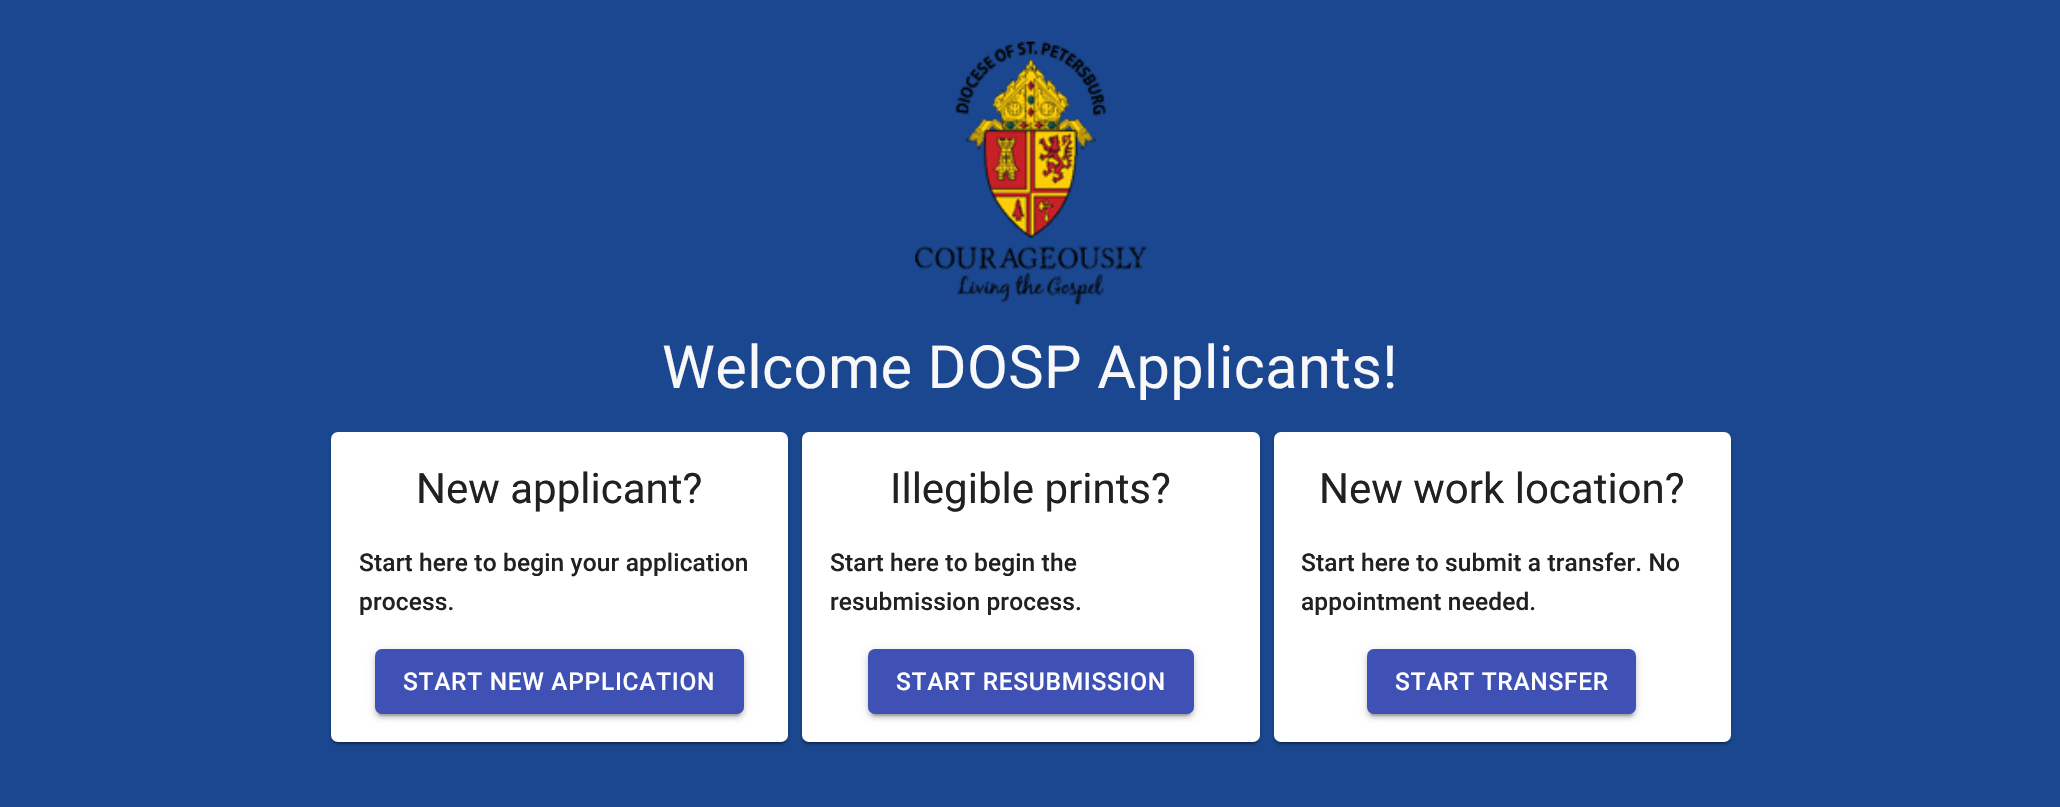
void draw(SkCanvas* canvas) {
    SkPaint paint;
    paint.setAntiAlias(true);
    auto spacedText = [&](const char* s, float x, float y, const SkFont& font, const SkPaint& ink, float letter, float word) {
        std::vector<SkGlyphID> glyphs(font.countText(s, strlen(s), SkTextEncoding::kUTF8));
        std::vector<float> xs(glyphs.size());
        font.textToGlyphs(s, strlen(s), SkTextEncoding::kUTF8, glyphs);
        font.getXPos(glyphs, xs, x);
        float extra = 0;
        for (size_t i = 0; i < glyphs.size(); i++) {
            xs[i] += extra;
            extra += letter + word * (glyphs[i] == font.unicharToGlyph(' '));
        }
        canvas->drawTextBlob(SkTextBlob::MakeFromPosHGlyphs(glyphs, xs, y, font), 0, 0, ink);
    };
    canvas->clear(0xFF1A478F);
    canvas->drawImageRect(SkImages::DeferredFromEncodedData(SkData::MakeFromFileName("img1.png")), SkRect::MakeXYWH(915, 41, 232, 264), SkSamplingOptions());
    SkFont font1(fontMgr->matchFamilyStyle("Roboto", SkFontStyle::Normal()), 59.5f);
    font1.setSubpixel(true);
    paint.setColor(0xFFF8F8F8);
    spacedText("Welcome DOSP Applicants!", 662, 388, font1, paint, 0.4f, 0);
    paint.setColor(0x1F000000);
    paint.setMaskFilter(SkMaskFilter::MakeBlur(kNormal_SkBlurStyle, 2.5f));
    canvas->drawRoundRect(SkRect::MakeXYWH(331, 434, 457, 310), 7, 7, paint);
    paint.setMaskFilter(nullptr);
    paint.setColor(0x24000000);
    paint.setMaskFilter(SkMaskFilter::MakeBlur(kNormal_SkBlurStyle, 1));
    canvas->drawRoundRect(SkRect::MakeXYWH(331, 434, 457, 310), 7, 7, paint);
    paint.setMaskFilter(nullptr);
    paint.setColor(0x33000000);
    paint.setMaskFilter(SkMaskFilter::MakeBlur(kNormal_SkBlurStyle, 1));
    canvas->drawRoundRect(SkRect::MakeXYWH(333, 438, 453, 306), 5, 5, paint);
    paint.setMaskFilter(nullptr);
    paint.setColor(0xFFFFFFFF);
    canvas->drawRoundRect(SkRect::MakeXYWH(331, 432, 457, 310), 7, 7, paint);
    SkFont font2(fontMgr->matchFamilyStyle("Roboto", SkFontStyle::Normal()), 42);
    font2.setSubpixel(true);
    paint.setColor(0xFF212121);
    canvas->drawString("New applicant?", 416, 503, font2, paint);
    SkFont font3(fontMgr->matchFamilyStyle("Roboto", SkFontStyle(500, SkFontStyle::kNormal_Width, SkFontStyle::kUpright_Slant)), 24.5f);
    font3.setSubpixel(true);
    spacedText("Start here to begin your application", 359, 571, font3, paint, 0.15f, 0);
    spacedText("process.", 359, 610, font3, paint, 0.15f, 0);
    paint.setColor(0x1F000000);
    paint.setMaskFilter(SkMaskFilter::MakeBlur(kNormal_SkBlurStyle, 4.5f));
    canvas->drawRoundRect(SkRect::MakeXYWH(375, 651, 369, 65), 7, 7, paint);
    paint.setMaskFilter(nullptr);
    paint.setColor(0x24000000);
    paint.setMaskFilter(SkMaskFilter::MakeBlur(kNormal_SkBlurStyle, 2));
    canvas->drawRoundRect(SkRect::MakeXYWH(375, 653, 369, 65), 7, 7, paint);
    paint.setMaskFilter(nullptr);
    paint.setColor(0x33000000);
    paint.setMaskFilter(SkMaskFilter::MakeBlur(kNormal_SkBlurStyle, 1));
    canvas->drawRoundRect(SkRect::MakeXYWH(378, 658, 362, 58), 4, 4, paint);
    paint.setMaskFilter(nullptr);
    paint.setColor(0xFF3F51B5);
    canvas->drawRoundRect(SkRect::MakeXYWH(375, 649, 369, 65), 7, 7, paint);
    paint.setColor(0xFFFFFFFF);
    spacedText("START NEW APPLICATION", 403, 690, font3, paint, 0.7f, 0);
    paint.setColor(0x1F000000);
    paint.setMaskFilter(SkMaskFilter::MakeBlur(kNormal_SkBlurStyle, 2.5f));
    canvas->drawRoundRect(SkRect::MakeXYWH(802, 434, 458, 310), 7, 7, paint);
    paint.setMaskFilter(nullptr);
    paint.setColor(0x24000000);
    paint.setMaskFilter(SkMaskFilter::MakeBlur(kNormal_SkBlurStyle, 1));
    canvas->drawRoundRect(SkRect::MakeXYWH(802, 434, 458, 310), 7, 7, paint);
    paint.setMaskFilter(nullptr);
    paint.setColor(0x33000000);
    paint.setMaskFilter(SkMaskFilter::MakeBlur(kNormal_SkBlurStyle, 1));
    canvas->drawRoundRect(SkRect::MakeXYWH(803, 438, 455, 306), 5, 5, paint);
    paint.setMaskFilter(nullptr);
    paint.setColor(0xFFFFFFFF);
    canvas->drawRoundRect(SkRect::MakeXYWH(802, 432, 458, 310), 7, 7, paint);
    paint.setColor(0xFF212121);
    canvas->drawString("Illegible prints?", 890, 503, font2, paint);
    spacedText("Start here to begin the", 830, 571, font3, paint, 0.15f, 0);
    spacedText("resubmission process.", 830, 610, font3, paint, 0.15f, 0);
    paint.setColor(0x1F000000);
    paint.setMaskFilter(SkMaskFilter::MakeBlur(kNormal_SkBlurStyle, 4.5f));
    canvas->drawRoundRect(SkRect::MakeXYWH(868, 651, 326, 65), 7, 7, paint);
    paint.setMaskFilter(nullptr);
    paint.setColor(0x24000000);
    paint.setMaskFilter(SkMaskFilter::MakeBlur(kNormal_SkBlurStyle, 2));
    canvas->drawRoundRect(SkRect::MakeXYWH(868, 653, 326, 65), 7, 7, paint);
    paint.setMaskFilter(nullptr);
    paint.setColor(0x33000000);
    paint.setMaskFilter(SkMaskFilter::MakeBlur(kNormal_SkBlurStyle, 1));
    canvas->drawRoundRect(SkRect::MakeXYWH(872, 658, 318, 58), 4, 4, paint);
    paint.setMaskFilter(nullptr);
    paint.setColor(0xFF3F51B5);
    canvas->drawRoundRect(SkRect::MakeXYWH(868, 649, 326, 65), 7, 7, paint);
    paint.setColor(0xFFFFFFFF);
    spacedText("START RESUBMISSION", 896, 690, font3, paint, 0.7f, 0);
    paint.setColor(0x1F000000);
    paint.setMaskFilter(SkMaskFilter::MakeBlur(kNormal_SkBlurStyle, 2.5f));
    canvas->drawRoundRect(SkRect::MakeXYWH(1274, 434, 457, 310), 7, 7, paint);
    paint.setMaskFilter(nullptr);
    paint.setColor(0x24000000);
    paint.setMaskFilter(SkMaskFilter::MakeBlur(kNormal_SkBlurStyle, 1));
    canvas->drawRoundRect(SkRect::MakeXYWH(1274, 434, 457, 310), 7, 7, paint);
    paint.setMaskFilter(nullptr);
    paint.setColor(0x33000000);
    paint.setMaskFilter(SkMaskFilter::MakeBlur(kNormal_SkBlurStyle, 1));
    canvas->drawRoundRect(SkRect::MakeXYWH(1276, 438, 453, 306), 5, 5, paint);
    paint.setMaskFilter(nullptr);
    paint.setColor(0xFFFFFFFF);
    canvas->drawRoundRect(SkRect::MakeXYWH(1274, 432, 457, 310), 7, 7, paint);
    paint.setColor(0xFF212121);
    canvas->drawString("New work location?", 1319, 503, font2, paint);
    spacedText("Start here to submit a transfer. No", 1301, 571, font3, paint, 0.15f, 0);
    spacedText("appointment needed.", 1301, 610, font3, paint, 0.15f, 0);
    paint.setColor(0x1F000000);
    paint.setMaskFilter(SkMaskFilter::MakeBlur(kNormal_SkBlurStyle, 4.5f));
    canvas->drawRoundRect(SkRect::MakeXYWH(1367, 651, 269, 65), 7, 7, paint);
    paint.setMaskFilter(nullptr);
    paint.setColor(0x24000000);
    paint.setMaskFilter(SkMaskFilter::MakeBlur(kNormal_SkBlurStyle, 2));
    canvas->drawRoundRect(SkRect::MakeXYWH(1367, 653, 269, 65), 7, 7, paint);
    paint.setMaskFilter(nullptr);
    paint.setColor(0x33000000);
    paint.setMaskFilter(SkMaskFilter::MakeBlur(kNormal_SkBlurStyle, 1));
    canvas->drawRoundRect(SkRect::MakeXYWH(1370, 658, 263, 58), 4, 4, paint);
    paint.setMaskFilter(nullptr);
    paint.setColor(0xFF3F51B5);
    canvas->drawRoundRect(SkRect::MakeXYWH(1367, 649, 269, 65), 7, 7, paint);
    paint.setColor(0xFFFFFFFF);
    spacedText("START TRANSFER", 1395, 690, font3, paint, 0.7f, 0);
}
